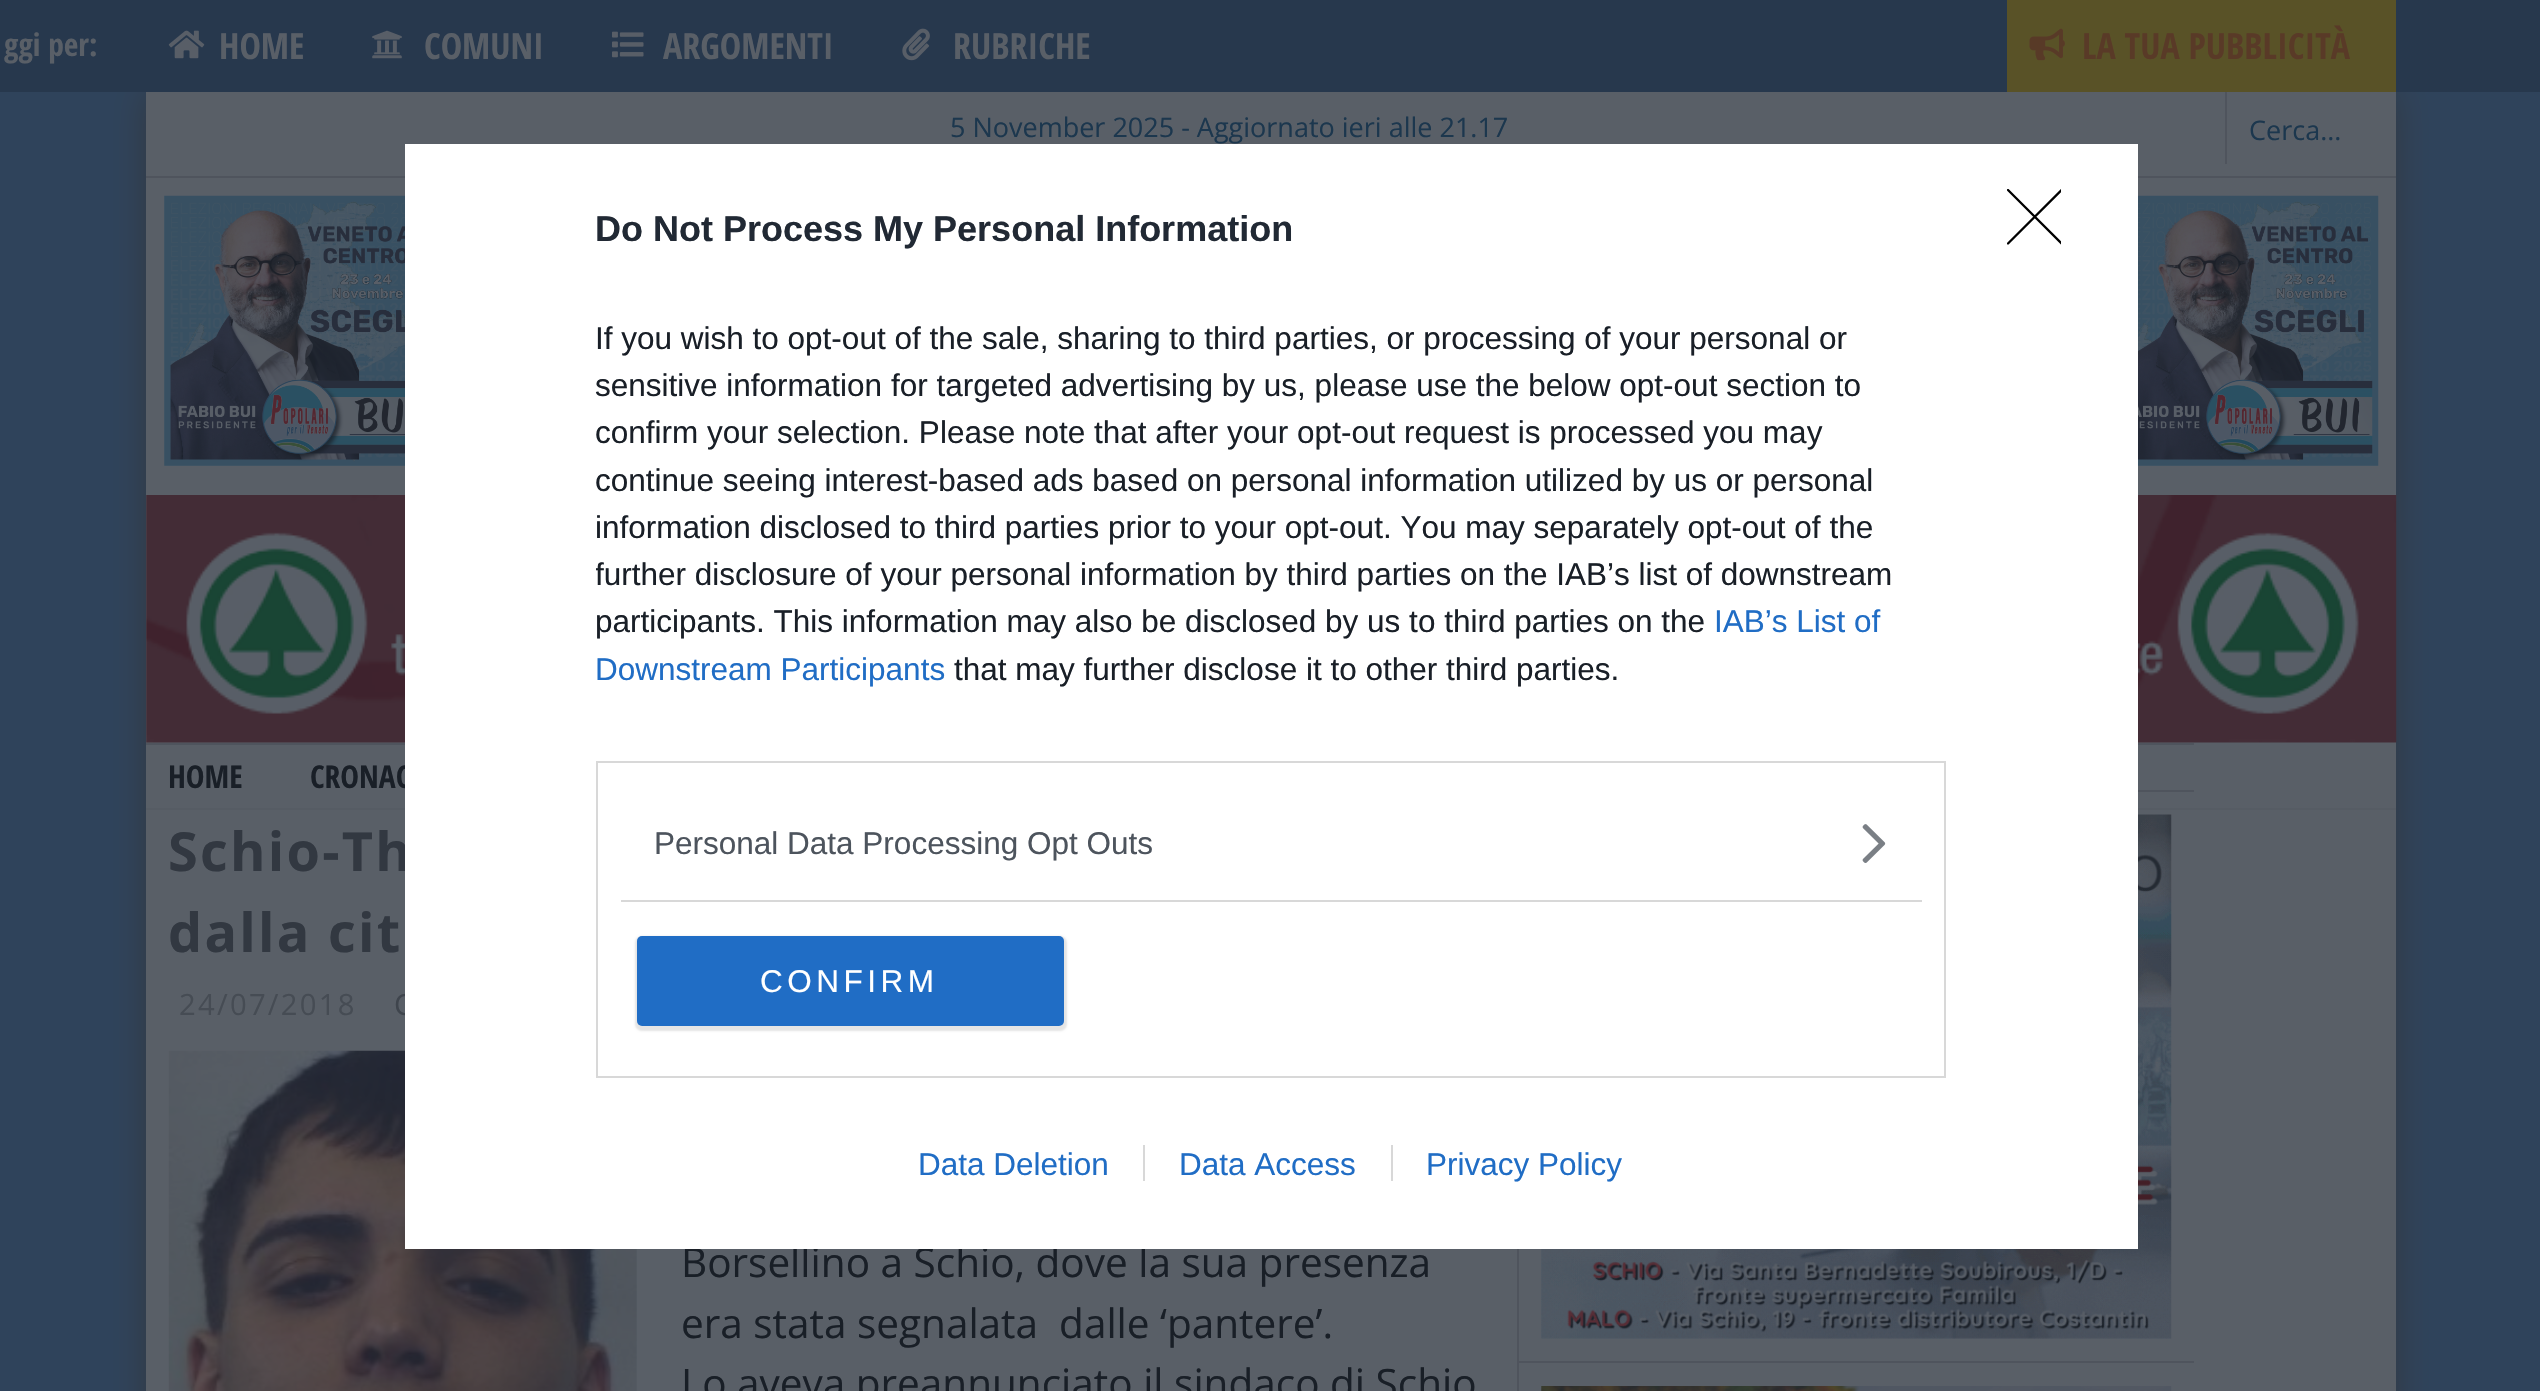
void draw(SkCanvas* canvas) {
    SkPaint paint;
    paint.setAntiAlias(true);
    auto spacedText = [&](const char* s, float x, float y, const SkFont& font, const SkPaint& ink, float letter, float word) {
        std::vector<SkGlyphID> glyphs(font.countText(s, strlen(s), SkTextEncoding::kUTF8));
        std::vector<float> xs(glyphs.size());
        font.textToGlyphs(s, strlen(s), SkTextEncoding::kUTF8, glyphs);
        font.getXPos(glyphs, xs, x);
        float extra = 0;
        for (size_t i = 0; i < glyphs.size(); i++) {
            xs[i] += extra;
            extra += letter + word * (glyphs[i] == font.unicharToGlyph(' '));
        }
        canvas->drawTextBlob(SkTextBlob::MakeFromPosHGlyphs(glyphs, xs, y, font), 0, 0, ink);
    };
    canvas->clear(0xFF2F435B);
    paint.setColor(0xFF323840);
    paint.setMaskFilter(SkMaskFilter::MakeBlur(kNormal_SkBlurStyle, 17));
    canvas->drawRect(SkRect::MakeXYWH(146, 92, 2250, 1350), paint);
    paint.setMaskFilter(nullptr);
    paint.setColor(0xFF27384D);
    canvas->drawRect(SkRect::MakeXYWH(0, 0, 2540, 92), paint);
    SkFont font1(fontMgr->matchFamilyStyle("Open Sans Condensed", SkFontStyle::Bold()), 31.5f);
    font1.setSubpixel(true);
    paint.setColor(0xFF595F67);
    canvas->drawString("ggi per:", 4, 56, font1, paint);
    canvas->drawImageRect(SkImages::DeferredFromEncodedData(SkData::MakeFromFileName("img1.png")), SkRect::MakeXYWH(168, 30, 37, 29), SkSamplingOptions());
    SkFont font2(fontMgr->matchFamilyStyle("Open Sans Condensed", SkFontStyle::Bold()), 36);
    font2.setSubpixel(true);
    canvas->drawString("HOME", 219, 59, font2, paint);
    canvas->drawImageRect(SkImages::DeferredFromEncodedData(SkData::MakeFromFileName("img2.png")), SkRect::MakeXYWH(372, 30, 30, 29), SkSamplingOptions());
    canvas->drawString("COMUNI", 424, 59, font2, paint);
    canvas->drawImageRect(SkImages::DeferredFromEncodedData(SkData::MakeFromFileName("img3.png")), SkRect::MakeXYWH(612, 31, 32, 27), SkSamplingOptions());
    canvas->drawString("ARGOMENTI", 663, 59, font2, paint);
    canvas->drawImageRect(SkImages::DeferredFromEncodedData(SkData::MakeFromFileName("img4.png")), SkRect::MakeXYWH(902, 28, 28, 33), SkSamplingOptions());
    canvas->drawString("RUBRICHE", 953, 59, font2, paint);
    paint.setColor(0xFF595227);
    canvas->drawRect(SkRect::MakeXYWH(2007, 0, 389, 92), paint);
    canvas->drawImageRect(SkImages::DeferredFromEncodedData(SkData::MakeFromFileName("img5.png")), SkRect::MakeXYWH(2029, 28, 36, 33), SkSamplingOptions());
    paint.setColor(0xFF593A27);
    canvas->drawString("LA TUA PUBBLICITÀ", 2082, 59, font2, paint);
    paint.setColor(0xFF595F67);
    canvas->drawRect(SkRect::MakeXYWH(146, 92, 2250, 1299), paint);
    paint.setColor(0xFF4F545D);
    canvas->drawRect(SkRect::MakeXYWH(146, 176, 2250, 2), paint);
    SkFont font3(fontMgr->matchFamilyStyle("Open Sans", SkFontStyle::Normal()), 27);
    font3.setSubpixel(true);
    paint.setColor(0xFF1C374E);
    canvas->drawString("5 November 2025 - Aggiornato ieri alle 21.17", 950, 137, font3, paint);
    paint.setColor(0xFF4F545D);
    canvas->drawRect(SkRect::MakeXYWH(2225, 92, 2, 72), paint);
    paint.setColor(0xFF1C374E);
    canvas->drawString("Cerca...", 2249, 140, font3, paint);
    canvas->drawImageRect(SkImages::DeferredFromEncodedData(SkData::MakeFromFileName("img6.png")), SkRect::MakeXYWH(164, 195, 241, 271), SkSamplingOptions());
    canvas->drawImageRect(SkImages::DeferredFromEncodedData(SkData::MakeFromFileName("img7.png")), SkRect::MakeXYWH(2138, 195, 241, 271), SkSamplingOptions());
    canvas->drawImageRect(SkImages::DeferredFromEncodedData(SkData::MakeFromFileName("img8.png")), SkRect::MakeXYWH(146, 495, 2251, 248), SkSamplingOptions());
    paint.setColor(0xFF4F545D);
    canvas->drawRect(SkRect::MakeXYWH(146, 743, 259, 2), paint);
    canvas->drawRect(SkRect::MakeXYWH(1517, 1249, 2, 142), paint);
    paint.setColor(0xFF565C64);
    canvas->drawRect(SkRect::MakeXYWH(146, 808, 2250, 2), paint);
    paint.setColor(0xFF191F27);
    canvas->drawString("HOME", 168, 788, font1, paint);
    canvas->drawString("CRONAC", 310, 788, font1, paint);
    SkFont font4(fontMgr->matchFamilyStyle("Open Sans", SkFontStyle::Bold()), 54);
    font4.setSubpixel(true);
    paint.setColor(0xFF323841);
    spacedText("Schio-Th", 168, 871, font4, paint, 2.25f, 0);
    spacedText("dalla cit", 168, 952, font4, paint, 2.25f, 0);
    SkFont font5(fontMgr->matchFamilyStyle("Open Sans", SkFontStyle::Normal()), 29.25f);
    font5.setSubpixel(true);
    paint.setColor(0xFF464C54);
    spacedText("24/07/2018", 179, 1015, font5, paint, 2.25f, 0);
    paint.setColor(0xFF3F454D);
    canvas->drawString("C", 394, 1015, font5, paint);
    canvas->drawImageRect(SkImages::DeferredFromEncodedData(SkData::MakeFromFileName("img9.png")), SkRect::MakeXYWH(168, 1050, 469, 341), SkSamplingOptions());
    SkFont font6(fontMgr->matchFamilyStyle("Open Sans", SkFontStyle::Normal()), 40.5f);
    font6.setSubpixel(true);
    paint.setColor(0xFF191F27);
    canvas->drawString("Borsellino a Schio, dove la sua presenza", 681, 1277, font6, paint);
    canvas->drawString("era stata segnalata  dalle ‘pantere’.", 681, 1338, font6, paint);
    canvas->drawString("Lo aveva preannunciato il sindaco di Schio", 681, 1398, font6, paint);
    paint.setColor(0xFF4F545D);
    canvas->drawRect(SkRect::MakeXYWH(2138, 743, 56, 2), paint);
    canvas->drawRect(SkRect::MakeXYWH(2138, 790, 56, 2), paint);
    canvas->drawImageRect(SkImages::DeferredFromEncodedData(SkData::MakeFromFileName("img10.png")), SkRect::MakeXYWH(1541, 814, 631, 525), SkSamplingOptions());
    canvas->drawRect(SkRect::MakeXYWH(1519, 1361, 675, 2), paint);
    canvas->drawImageRect(SkImages::DeferredFromEncodedData(SkData::MakeFromFileName("img11.png")), SkRect::MakeXYWH(1541, 1386, 631, 5), SkSamplingOptions());
    paint.setColor(0xFFFFFFFF);
    canvas->drawRect(SkRect::MakeXYWH(405, 144, 1733, 1105), paint);
    SkFont font7(fontMgr->matchFamilyStyle("Liberation Sans", SkFontStyle::Bold()), 36);
    font7.setSubpixel(true);
    paint.setColor(0xFF212934);
    canvas->drawString("Do Not Process My Personal Information", 595, 241, font7, paint);
    SkFont font8(fontMgr->matchFamilyStyle("Liberation Sans", SkFontStyle::Normal()), 31.5f);
    font8.setSubpixel(true);
    paint.setColor(0xFF191F27);
    canvas->drawString("If you wish to opt-out of the sale, sharing to third parties, or processing of your personal or", 595, 349, font8, paint);
    canvas->drawString("sensitive information for targeted advertising by us, please use the below opt-out section to", 595, 396, font8, paint);
    canvas->drawString("confirm your selection. Please note that after your opt-out request is processed you may", 595, 443, font8, paint);
    canvas->drawString("continue seeing interest-based ads based on personal information utilized by us or personal", 595, 491, font8, paint);
    canvas->drawString("information disclosed to third parties prior to your opt-out. You may separately opt-out of the", 595, 538, font8, paint);
    canvas->save();
    canvas->clipRect(SkRect::MakeXYWH(596, 281, 1350, 446));
    canvas->drawString("further disclosure of your personal information by third parties on the IAB’s list of downstream", 595, 585, font8, paint);
    canvas->restore();
    canvas->drawString("participants. This information may also be disclosed by us to third parties on the", 595, 632, font8, paint);
    paint.setColor(0xFF206DC5);
    canvas->drawString("IAB’s List of", 1714, 632, font8, paint);
    canvas->drawString("Downstream Participants", 595, 680, font8, paint);
    paint.setColor(0xFF191F27);
    canvas->drawString("that may further disclose it to other third parties.", 954, 680, font8, paint);
    paint.setStyle(SkPaint::kStroke_Style);
    paint.setStrokeWidth(2);
    paint.setColor(0xFFD8D8D8);
    canvas->drawRect(SkRect::MakeXYWH(597, 762, 1348, 315), paint);
    paint.setStyle(SkPaint::kFill_Style);
    canvas->drawRect(SkRect::MakeXYWH(621, 900, 1301, 2), paint);
    paint.setColor(0xFF4D545D);
    canvas->drawString("Personal Data Processing Opt Outs", 654, 854, font8, paint);
    canvas->drawImageRect(SkImages::DeferredFromEncodedData(SkData::MakeFromFileName("img12.png")), SkRect::MakeXYWH(1862, 824, 24, 39), SkSamplingOptions());
    paint.setColor(0x1A000000);
    paint.setMaskFilter(SkMaskFilter::MakeBlur(kNormal_SkBlurStyle, 1));
    canvas->drawRoundRect(SkRect::MakeXYWH(635, 936, 432, 95), 7, 7, paint);
    paint.setMaskFilter(nullptr);
    paint.setColor(0xFF206DC5);
    canvas->drawRoundRect(SkRect::MakeXYWH(637, 936, 427, 90), 5, 5, paint);
    paint.setColor(0xFFFFFFFF);
    spacedText("CONFIRM", 760, 992, font8, paint, 4.5f, 0);
    canvas->save();
    canvas->clipRect(SkRect::MakeXYWH(2007, 189, 54, 56));
    paint.setStyle(SkPaint::kStroke_Style);
    paint.setStrokeWidth(2.3f);
    paint.setStrokeCap(SkPaint::kRound_Cap);
    paint.setStrokeJoin(SkPaint::kRound_Join);
    paint.setColor(0xFF000000);
    canvas->drawPath(SkPathBuilder().moveTo(2008, 190).lineTo(2061.5f, 243.5f).moveTo(2061.5f, 190).lineTo(2008, 243.5f).detach(), paint);
    canvas->restore();
    paint.setStyle(SkPaint::kFill_Style);
    paint.setColor(0xFF206DC5);
    canvas->drawString("Data Deletion", 918, 1175, font8, paint);
    canvas->drawString("Data Access", 1179, 1175, font8, paint);
    paint.setColor(0xFFD8D8D8);
    canvas->drawRect(SkRect::MakeXYWH(1143, 1145, 2, 36), paint);
    paint.setColor(0xFF206DC5);
    canvas->drawString("Privacy Policy", 1426, 1175, font8, paint);
    paint.setColor(0xFFD8D8D8);
    canvas->drawRect(SkRect::MakeXYWH(1391, 1145, 2, 36), paint);
}
